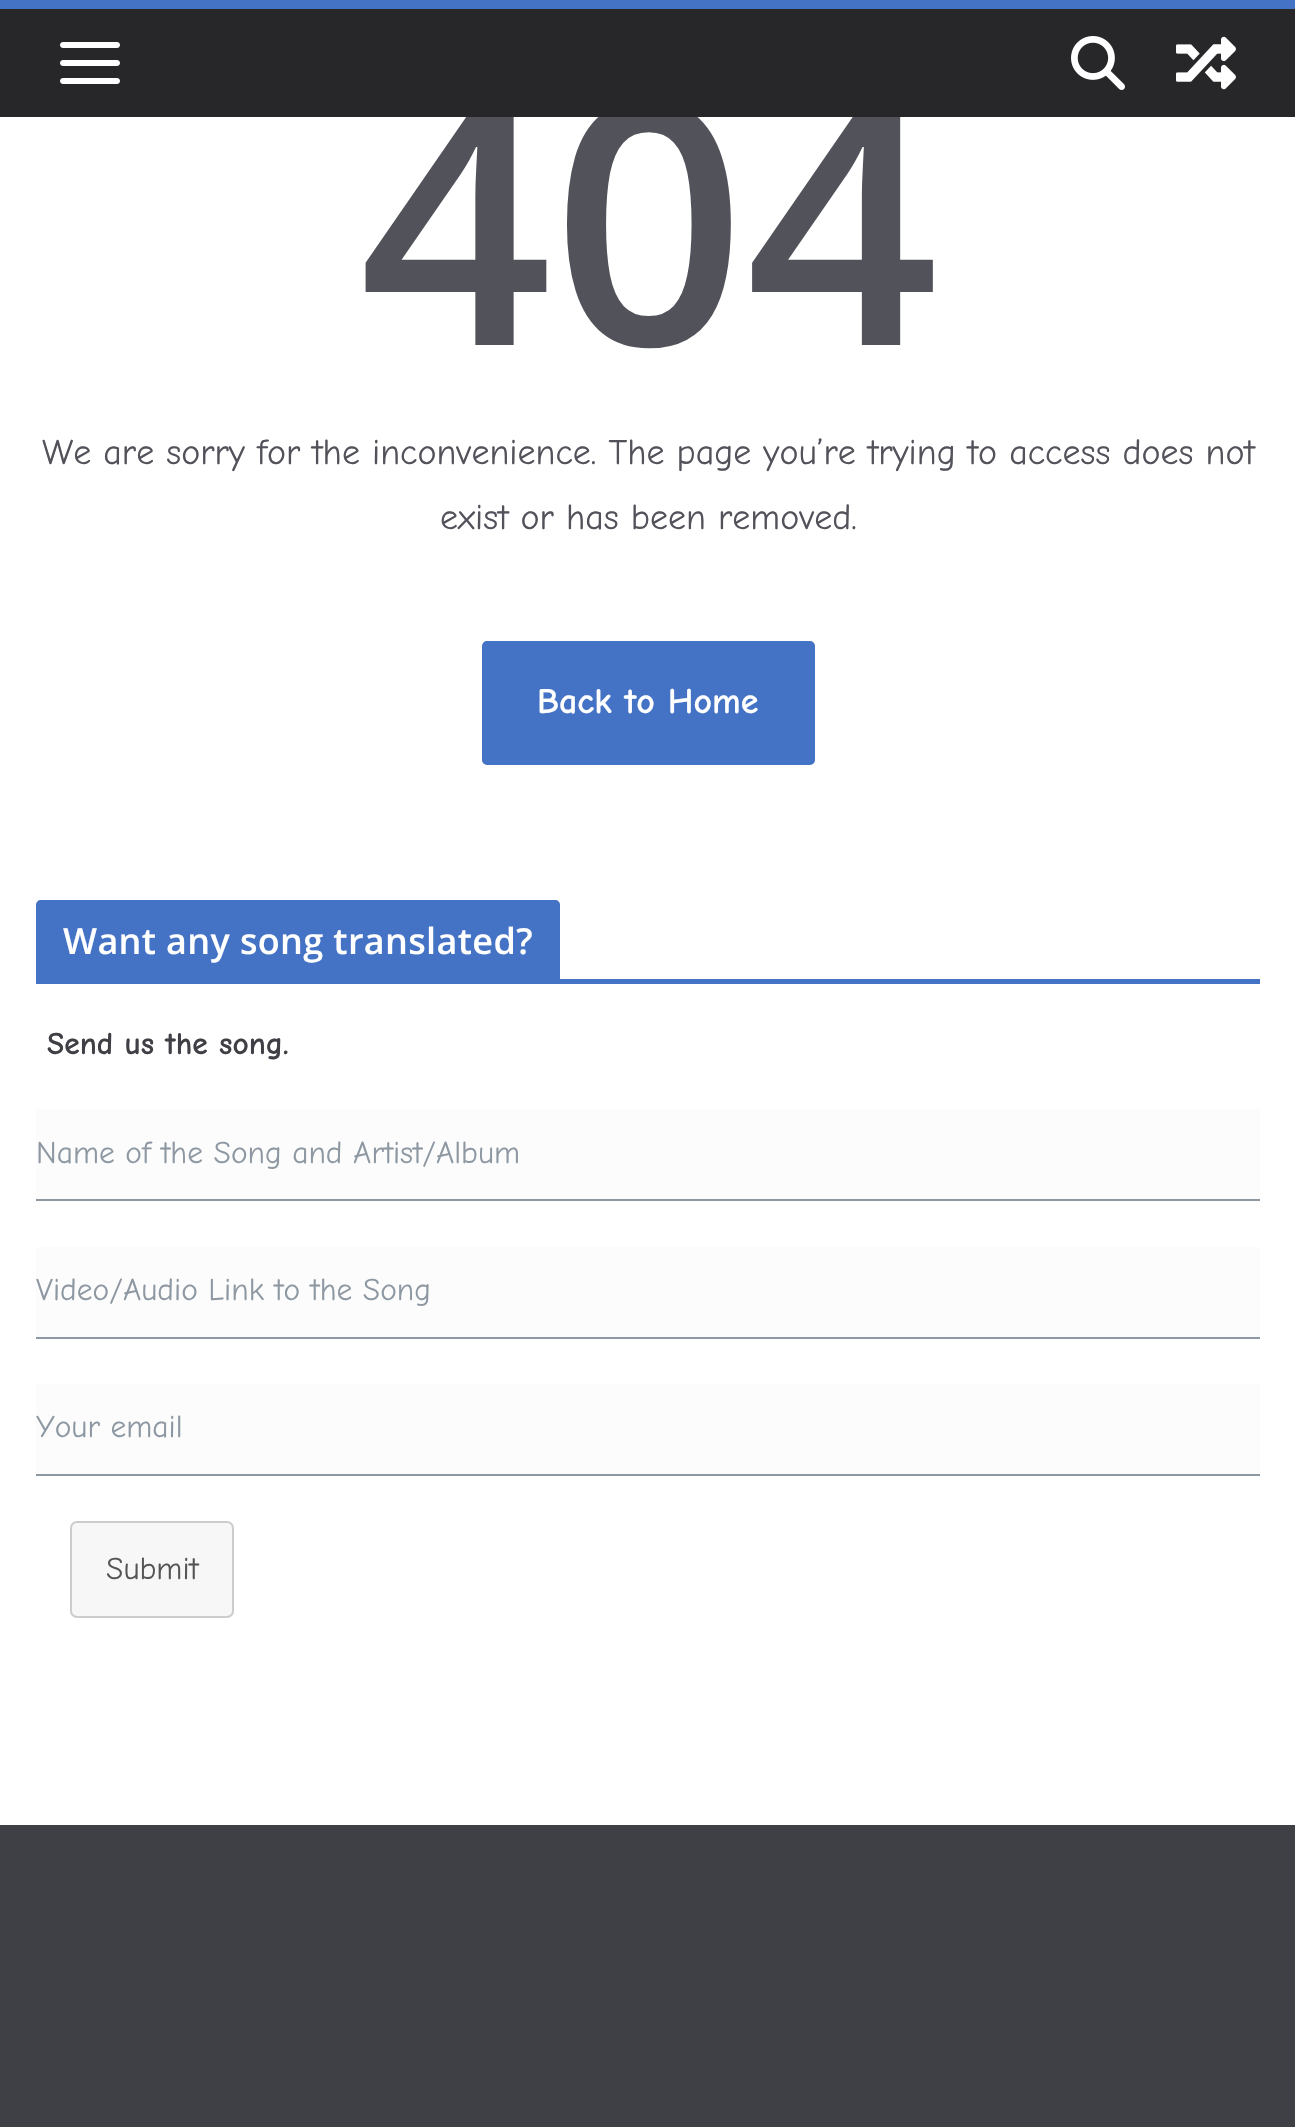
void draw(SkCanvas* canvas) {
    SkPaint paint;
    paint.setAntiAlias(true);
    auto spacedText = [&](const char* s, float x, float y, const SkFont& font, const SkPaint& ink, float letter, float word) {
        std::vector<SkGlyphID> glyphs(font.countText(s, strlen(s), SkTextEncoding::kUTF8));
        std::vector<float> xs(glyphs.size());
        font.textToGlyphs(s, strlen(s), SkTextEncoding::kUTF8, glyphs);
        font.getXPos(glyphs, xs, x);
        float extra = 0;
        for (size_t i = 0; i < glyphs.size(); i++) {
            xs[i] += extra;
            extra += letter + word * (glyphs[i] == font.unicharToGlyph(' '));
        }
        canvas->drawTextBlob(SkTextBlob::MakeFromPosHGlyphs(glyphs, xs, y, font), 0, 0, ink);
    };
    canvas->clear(0xFFFFFFFF);
    SkFont font1(fontMgr->matchFamilyStyle("Open Sans", SkFontStyle(600, SkFontStyle::kNormal_Width, SkFontStyle::kUpright_Slant)), 338);
    font1.setSubpixel(true);
    paint.setColor(0xFF52525B);
    canvas->drawString("404", 359, 345, font1, paint);
    paint.setColor(0xFF27272A);
    canvas->drawRect(SkRect::MakeXYWH(0, 9, 1295, 108), paint);
    paint.setColor(0xFF4472C4);
    canvas->drawRect(SkRect::MakeXYWH(0, 0, 1295, 9), paint);
    canvas->drawImageRect(SkImages::DeferredFromEncodedData(SkData::MakeFromFileName("img1.png")), SkRect::MakeXYWH(60, 42, 60, 42), SkSamplingOptions());
    canvas->drawImageRect(SkImages::DeferredFromEncodedData(SkData::MakeFromFileName("img2.png")), SkRect::MakeXYWH(1071, 36, 54, 54), SkSamplingOptions());
    canvas->drawImageRect(SkImages::DeferredFromEncodedData(SkData::MakeFromFileName("img3.png")), SkRect::MakeXYWH(1176, 36, 60, 54), SkSamplingOptions());
    SkFont font2(fontMgr->matchFamilyStyle("Comic Neue", SkFontStyle::Normal()), 36);
    font2.setSubpixel(true);
    paint.setColor(0xFF52525B);
    canvas->drawString("We are sorry for the inconvenience. The page you’re trying to access does not", 42, 464, font2, paint);
    canvas->drawString("exist or has been removed.", 440, 529, font2, paint);
    paint.setColor(0xFF4472C4);
    canvas->drawRoundRect(SkRect::MakeXYWH(483, 642, 331, 122), 4, 4, paint);
    paint.setStyle(SkPaint::kStroke_Style);
    paint.setStrokeWidth(2);
    canvas->drawRoundRect(SkRect::MakeXYWH(483, 642, 331, 122), 4, 4, paint);
    SkFont font3(fontMgr->matchFamilyStyle("Comic Neue", SkFontStyle::Bold()), 36);
    font3.setSubpixel(true);
    paint.setStyle(SkPaint::kFill_Style);
    paint.setColor(0xFFFFFFFF);
    canvas->drawString("Back to Home", 537, 713, font3, paint);
    paint.setColor(0xFF4472C4);
    canvas->drawRect(SkRect::MakeXYWH(36, 979, 1224, 5), paint);
    canvas->drawPath(SkPathBuilder().moveTo(41, 900).lineTo(555, 900).cubicTo(558, 900, 560, 902, 560, 905).lineTo(560, 979).lineTo(36, 979).lineTo(36, 905).cubicTo(36, 902, 38, 900, 41, 900).close().detach(), paint);
    SkFont font4(fontMgr->matchFamilyStyle("Open Sans", SkFontStyle(600, SkFontStyle::kNormal_Width, SkFontStyle::kUpright_Slant)), 36);
    font4.setSubpixel(true);
    paint.setColor(0xFFFFFFFF);
    spacedText("Want any song translated?", 63, 954, font4, paint, 0.35f, 0);
    SkFont font5(fontMgr->matchFamilyStyle("Comic Neue", SkFontStyle::Bold()), 31.5f);
    font5.setSubpixel(true);
    paint.setColor(0xFF3F3F46);
    canvas->drawString("Send us the song.", 47, 1054, font5, paint);
    paint.setColor(0xFFFCFCFC);
    canvas->drawRect(SkRect::MakeXYWH(36, 1109, 1224, 93), paint);
    paint.setColor(0xFF8E98A2);
    canvas->drawRect(SkRect::MakeXYWH(36, 1199, 1224, 2), paint);
    SkFont font6(fontMgr->matchFamilyStyle("Comic Neue", SkFontStyle::Normal()), 31.5f);
    font6.setSubpixel(true);
    canvas->drawString("Name of the Song and Artist/Album", 36, 1163, font6, paint);
    paint.setColor(0xFFFCFCFC);
    canvas->drawRect(SkRect::MakeXYWH(36, 1247, 1224, 90), paint);
    paint.setColor(0xFF8E98A2);
    canvas->drawRect(SkRect::MakeXYWH(36, 1337, 1224, 2), paint);
    canvas->drawString("Video/Audio Link to the Song", 36, 1300, font6, paint);
    paint.setColor(0xFFFCFCFC);
    canvas->drawRect(SkRect::MakeXYWH(36, 1384, 1224, 90), paint);
    paint.setColor(0xFF8E98A2);
    canvas->drawRect(SkRect::MakeXYWH(36, 1474, 1224, 2), paint);
    canvas->drawString("Your email", 36, 1437, font6, paint);
    paint.setColor(0xFFF7F7F7);
    canvas->drawRoundRect(SkRect::MakeXYWH(71, 1522, 162, 95), 6, 6, paint);
    paint.setStyle(SkPaint::kStroke_Style);
    paint.setColor(0xFFCCCCCC);
    canvas->drawRoundRect(SkRect::MakeXYWH(71, 1522, 162, 95), 6, 6, paint);
    paint.setStyle(SkPaint::kFill_Style);
    paint.setColor(0xFF555555);
    canvas->drawString("Submit", 106, 1579, font6, paint);
    paint.setColor(0xFF3F3F46);
    canvas->drawRect(SkRect::MakeXYWH(0, 1825, 1295, 302), paint);
}
